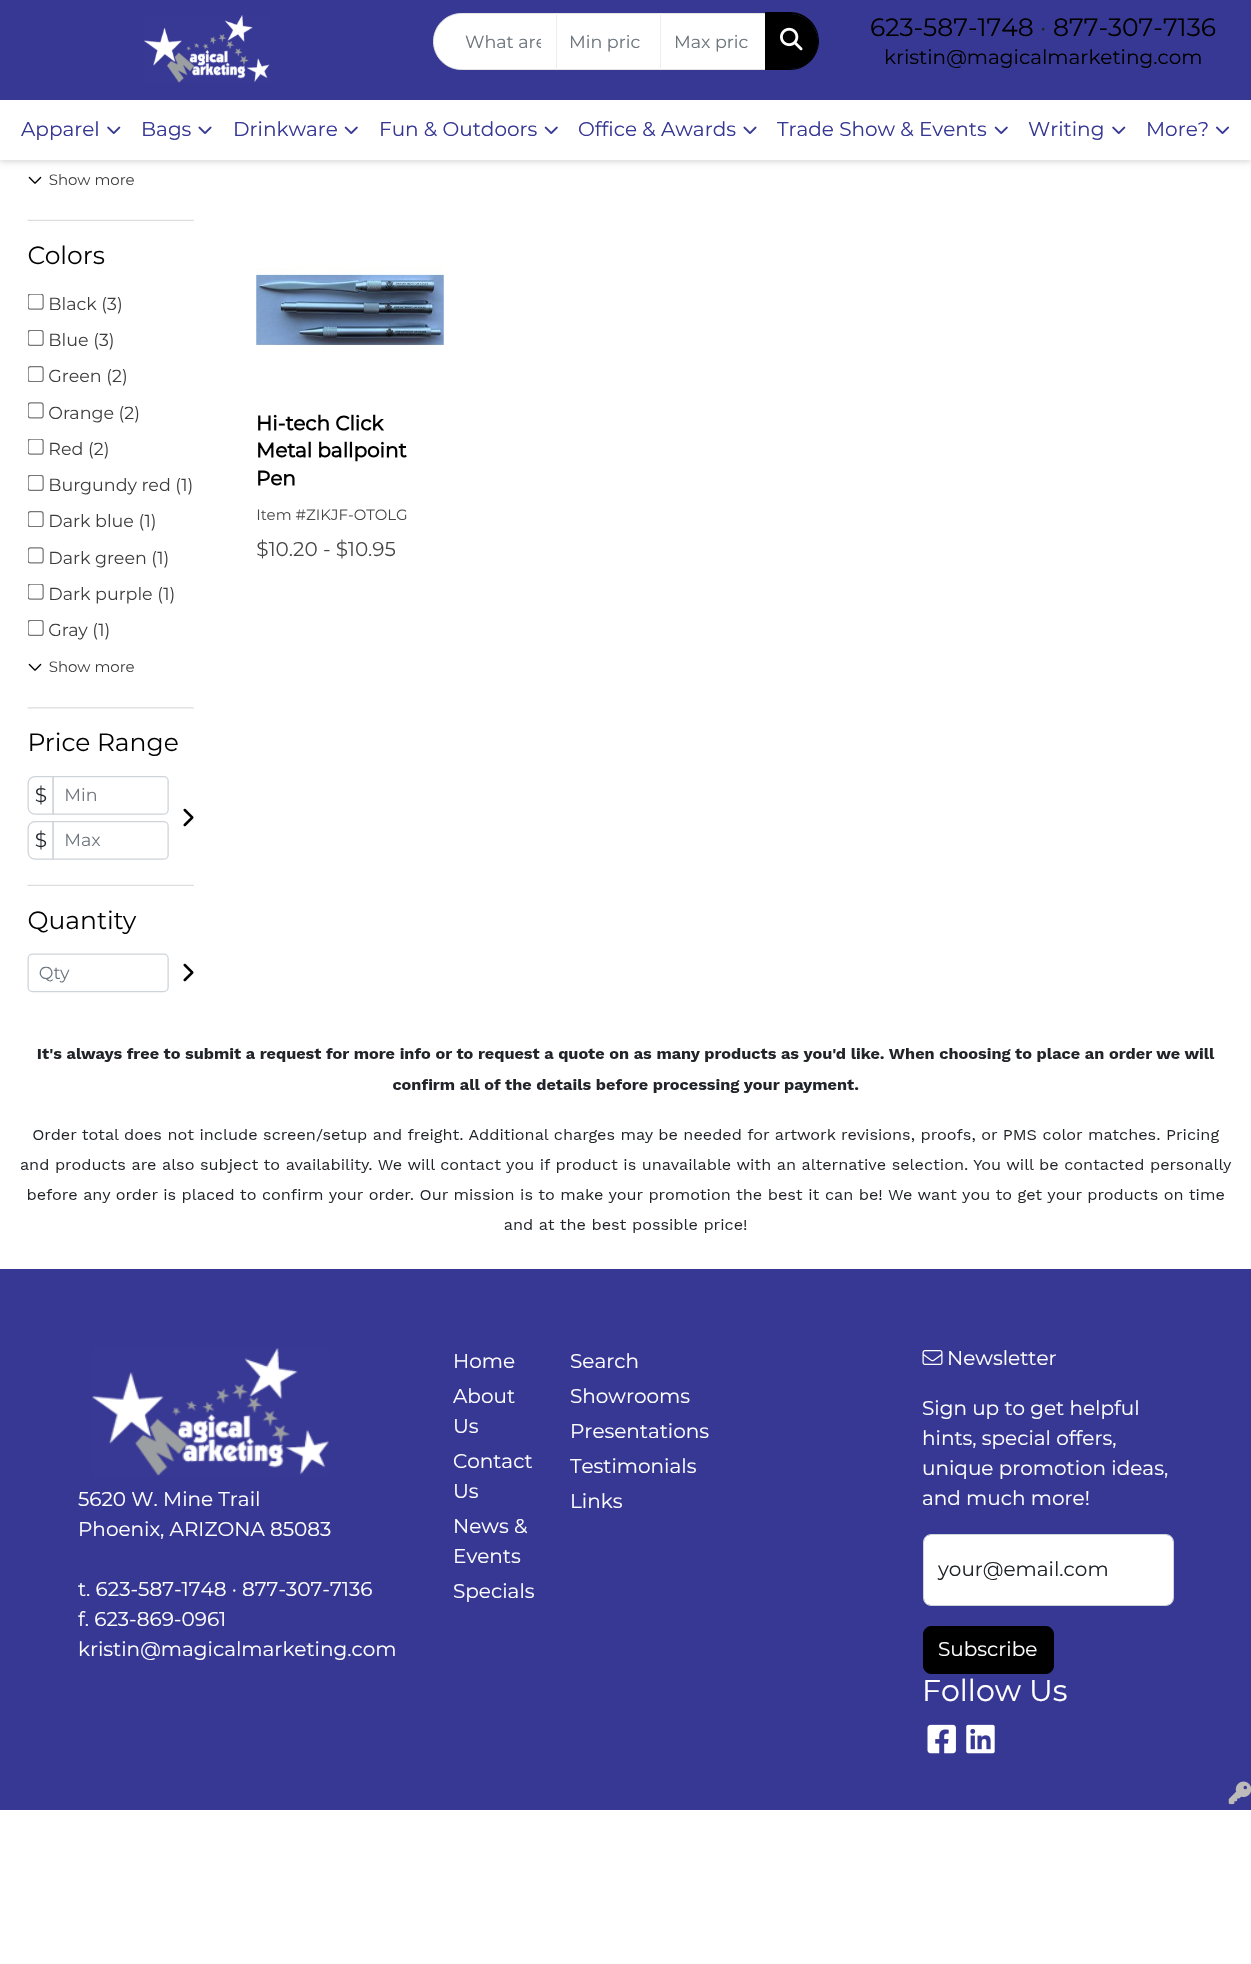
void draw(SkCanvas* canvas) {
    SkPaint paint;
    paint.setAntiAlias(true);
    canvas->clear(0xFFFFFFFF);
    canvas->drawImageRect(SkImages::DeferredFromEncodedData(SkData::MakeFromFileName("img7.png")), SkRect::MakeXYWH(21, 160, 1211, 1073), SkSamplingOptions());
    paint.setColor(0x1A000000);
    paint.setMaskFilter(SkMaskFilter::MakeBlur(kNormal_SkBlurStyle, 3));
    canvas->drawRect(SkRect::MakeXYWH(0, 0, 1251, 160), paint);
    paint.setMaskFilter(nullptr);
    paint.setColor(0xFF373894);
    canvas->drawRect(SkRect::MakeXYWH(0, 0, 1251, 100), paint);
    canvas->drawImageRect(SkImages::DeferredFromEncodedData(SkData::MakeFromFileName("img1.png")), SkRect::MakeXYWH(144, 15, 126, 68), SkSamplingOptions());
    paint.setColor(0xFFFFFFFF);
    canvas->drawPath(SkPathBuilder().moveTo(461.5f, 13.5f).lineTo(557.5f, 13.5f).lineTo(557.5f, 69.5f).lineTo(461.5f, 69.5f).cubicTo(446, 69.5f, 433.5f, 57, 433.5f, 41.5f).cubicTo(433.5f, 26, 446, 13.5f, 461.5f, 13.5f).close().detach(), paint);
    paint.setStyle(SkPaint::kStroke_Style);
    paint.setStrokeWidth(1);
    paint.setColor(0xFFE4E4E4);
    canvas->drawPath(SkPathBuilder().moveTo(461.5f, 13.5f).lineTo(557.5f, 13.5f).lineTo(557.5f, 69.5f).lineTo(461.5f, 69.5f).cubicTo(446, 69.5f, 433.5f, 57, 433.5f, 41.5f).cubicTo(433.5f, 26, 446, 13.5f, 461.5f, 13.5f).close().detach(), paint);
    canvas->save();
    canvas->clipRect(SkRect::MakeXYWH(465, 30, 76, 23));
    SkFont font1(fontMgr->matchFamilyStyle("Montserrat", SkFontStyle(100, SkFontStyle::kNormal_Width, SkFontStyle::kUpright_Slant)), 17.5f);
    font1.setSubpixel(true);
    paint.setStyle(SkPaint::kFill_Style);
    paint.setColor(0xFF6C757D);
    canvas->drawString("What are", 465, 48, font1, paint);
    canvas->restore();
    paint.setColor(0xFFFFFFFF);
    canvas->drawRect(SkRect::MakeXYWH(557, 14, 103, 55), paint);
    paint.setColor(0xFFE4E4E4);
    canvas->drawRect(SkRect::MakeXYWH(556, 13, 210, 1), paint);
    canvas->drawRect(SkRect::MakeXYWH(556, 69, 210, 1), paint);
    paint.setColor(0xFFEFEFEF);
    canvas->drawRect(SkRect::MakeXYWH(556, 13, 1, 57), paint);
    paint.setColor(0xFF6C757D);
    canvas->drawString("Min pric", 569, 48, font1, paint);
    paint.setColor(0xFFFFFFFF);
    canvas->drawRect(SkRect::MakeXYWH(661, 14, 104, 55), paint);
    paint.setColor(0xFFEFEFEF);
    canvas->drawRect(SkRect::MakeXYWH(660, 13, 1, 57), paint);
    paint.setColor(0xFF6C757D);
    canvas->drawString("Max pric", 674, 48, font1, paint);
    paint.setColor(0xFF000000);
    canvas->drawPath(SkPathBuilder().moveTo(765, 14).lineTo(790.5f, 14).cubicTo(805.5f, 14, 818, 26.5f, 818, 41.5f).cubicTo(818, 56.5f, 805.5f, 69, 790.5f, 69).lineTo(765, 69).close().detach(), paint);
    canvas->drawPath(SkPathBuilder(SkPathFillType::kEvenOdd).moveTo(765, 12).lineTo(790, 12).cubicTo(806, 12, 819, 25, 819, 41).cubicTo(819, 57, 806, 70, 790, 70).lineTo(765, 70).close().moveTo(765, 14).lineTo(790, 14).cubicTo(805, 14, 818, 26, 818, 41).cubicTo(818, 56, 805, 69, 790, 69).lineTo(765, 69).close().detach(), paint);
    canvas->drawImageRect(SkImages::DeferredFromEncodedData(SkData::MakeFromFileName("img2.png")), SkRect::MakeXYWH(780, 27, 23, 24), SkSamplingOptions());
    SkFont font2(fontMgr->matchFamilyStyle("Montserrat", SkFontStyle(100, SkFontStyle::kNormal_Width, SkFontStyle::kUpright_Slant)), 25);
    font2.setSubpixel(true);
    canvas->drawString("623-587-1748", 870, 36, font2, paint);
    paint.setColor(0xFF212529);
    canvas->drawString("·", 1040, 36, font2, paint);
    paint.setColor(0xFF000000);
    canvas->drawString("877-307-7136", 1053, 36, font2, paint);
    SkFont font3(fontMgr->matchFamilyStyle("Montserrat", SkFontStyle(100, SkFontStyle::kNormal_Width, SkFontStyle::kUpright_Slant)), 20);
    font3.setSubpixel(true);
    canvas->drawString("kristin@magicalmarketing.com", 884, 64, font3, paint);
    paint.setColor(0x12000000);
    paint.setMaskFilter(SkMaskFilter::MakeBlur(kNormal_SkBlurStyle, 2.5f));
    canvas->drawRect(SkRect::MakeXYWH(0, 103, 1251, 60), paint);
    paint.setMaskFilter(nullptr);
    paint.setColor(0xFFFFFFFF);
    canvas->drawRect(SkRect::MakeXYWH(0, 100, 1251, 60), paint);
    paint.setColor(0xFF373894);
    canvas->drawString("Apparel", 21, 136, font3, paint);
    canvas->drawImageRect(SkImages::DeferredFromEncodedData(SkData::MakeFromFileName("img3.png")), SkRect::MakeXYWH(107, 126, 14, 8), SkSamplingOptions());
    canvas->drawString("Bags", 141, 136, font3, paint);
    canvas->drawImageRect(SkImages::DeferredFromEncodedData(SkData::MakeFromFileName("img4.png")), SkRect::MakeXYWH(198, 126, 14, 8), SkSamplingOptions());
    canvas->drawString("Drinkware", 233, 136, font3, paint);
    canvas->drawImageRect(SkImages::DeferredFromEncodedData(SkData::MakeFromFileName("img5.png")), SkRect::MakeXYWH(344, 126, 14, 8), SkSamplingOptions());
    canvas->drawString("Fun & Outdoors", 379, 136, font3, paint);
    canvas->drawImageRect(SkImages::DeferredFromEncodedData(SkData::MakeFromFileName("img5.png")), SkRect::MakeXYWH(544, 126, 14, 8), SkSamplingOptions());
    canvas->drawString("Office & Awards", 578, 136, font3, paint);
    canvas->drawImageRect(SkImages::DeferredFromEncodedData(SkData::MakeFromFileName("img4.png")), SkRect::MakeXYWH(743, 126, 14, 8), SkSamplingOptions());
    canvas->drawString("Trade Show & Events", 777, 136, font3, paint);
    canvas->drawImageRect(SkImages::DeferredFromEncodedData(SkData::MakeFromFileName("img5.png")), SkRect::MakeXYWH(994, 126, 14, 8), SkSamplingOptions());
    canvas->drawString("Writing", 1028, 136, font3, paint);
    canvas->drawImageRect(SkImages::DeferredFromEncodedData(SkData::MakeFromFileName("img3.png")), SkRect::MakeXYWH(1112, 126, 14, 8), SkSamplingOptions());
    canvas->drawString("More?", 1146, 136, font3, paint);
    canvas->drawImageRect(SkImages::DeferredFromEncodedData(SkData::MakeFromFileName("img6.png")), SkRect::MakeXYWH(1216, 126, 13, 8), SkSamplingOptions());
    canvas->drawRect(SkRect::MakeXYWH(0, 1269, 1251, 541), paint);
    canvas->drawImageRect(SkImages::DeferredFromEncodedData(SkData::MakeFromFileName("img8.png")), SkRect::MakeXYWH(92, 1348, 237, 128), SkSamplingOptions());
    paint.setColor(0xFFFFFFFF);
    canvas->drawString("5620 W. Mine Trail", 78, 1506, font3, paint);
    canvas->drawString("Phoenix, ARIZONA 85083", 78, 1536, font3, paint);
    canvas->drawString("t. 623-587-1748 · 877-307-7136", 78, 1596, font3, paint);
    canvas->drawString("f. 623-869-0961", 78, 1626, font3, paint);
    canvas->drawString("kristin@magicalmarketing.com", 78, 1656, font3, paint);
    canvas->drawString("Home", 453, 1368, font3, paint);
    canvas->drawString("About", 453, 1403, font3, paint);
    canvas->drawString("Us", 453, 1433, font3, paint);
    canvas->drawString("Contact", 453, 1468, font3, paint);
    canvas->drawString("Us", 453, 1498, font3, paint);
    canvas->drawString("News &", 453, 1533, font3, paint);
    canvas->drawString("Events", 453, 1563, font3, paint);
    canvas->drawString("Specials", 453, 1598, font3, paint);
    canvas->drawString("Search", 570, 1368, font3, paint);
    canvas->drawString("Showrooms", 570, 1403, font3, paint);
    canvas->drawString("Presentations", 570, 1438, font3, paint);
    canvas->drawString("Testimonials", 570, 1473, font3, paint);
    canvas->drawString("Links", 570, 1508, font3, paint);
    canvas->drawImageRect(SkImages::DeferredFromEncodedData(SkData::MakeFromFileName("img9.png")), SkRect::MakeXYWH(922, 1350, 21, 15), SkSamplingOptions());
    canvas->drawString("Newsletter", 947, 1365, font3, paint);
    canvas->drawString("Sign up to get helpful", 922, 1415, font3, paint);
    canvas->drawString("hints, special offers,", 922, 1445, font3, paint);
    canvas->drawString("unique promotion ideas,", 922, 1475, font3, paint);
    canvas->drawString("and much more!", 922, 1505, font3, paint);
    canvas->drawRoundRect(SkRect::MakeXYWH(924, 1535, 249, 70), 6, 6, paint);
    paint.setStyle(SkPaint::kStroke_Style);
    paint.setColor(0xFFCED4DA);
    canvas->drawRoundRect(SkRect::MakeXYWH(923.5f, 1534.5f, 250, 71), 7.5f, 7.5f, paint);
    paint.setStyle(SkPaint::kFill_Style);
    paint.setColor(0xFF212529);
    canvas->drawString("your@email.com", 938, 1576, font3, paint);
    paint.setColor(0xFF000000);
    canvas->drawRoundRect(SkRect::MakeXYWH(923.5f, 1626.5f, 130, 47), 7.5f, 7.5f, paint);
    paint.setStyle(SkPaint::kStroke_Style);
    canvas->drawRoundRect(SkRect::MakeXYWH(923.5f, 1626.5f, 130, 47), 7.5f, 7.5f, paint);
    paint.setStyle(SkPaint::kFill_Style);
    paint.setColor(0xFFFFFFFF);
    canvas->drawString("Subscribe", 938, 1656, font3, paint);
    SkFont font4(fontMgr->matchFamilyStyle("Montserrat", SkFontStyle(100, SkFontStyle::kNormal_Width, SkFontStyle::kUpright_Slant)), 30);
    font4.setSubpixel(true);
    canvas->drawString("Follow Us", 922, 1701, font4, paint);
    canvas->drawImageRect(SkImages::DeferredFromEncodedData(SkData::MakeFromFileName("img10.png")), SkRect::MakeXYWH(927, 1724, 29, 30), SkSamplingOptions());
    canvas->drawImageRect(SkImages::DeferredFromEncodedData(SkData::MakeFromFileName("img11.png")), SkRect::MakeXYWH(966, 1724, 29, 30), SkSamplingOptions());
    canvas->drawImageRect(SkImages::DeferredFromEncodedData(SkData::MakeFromFileName("img12.png")), SkRect::MakeXYWH(1228, 1781, 23, 24), SkSamplingOptions());
}
